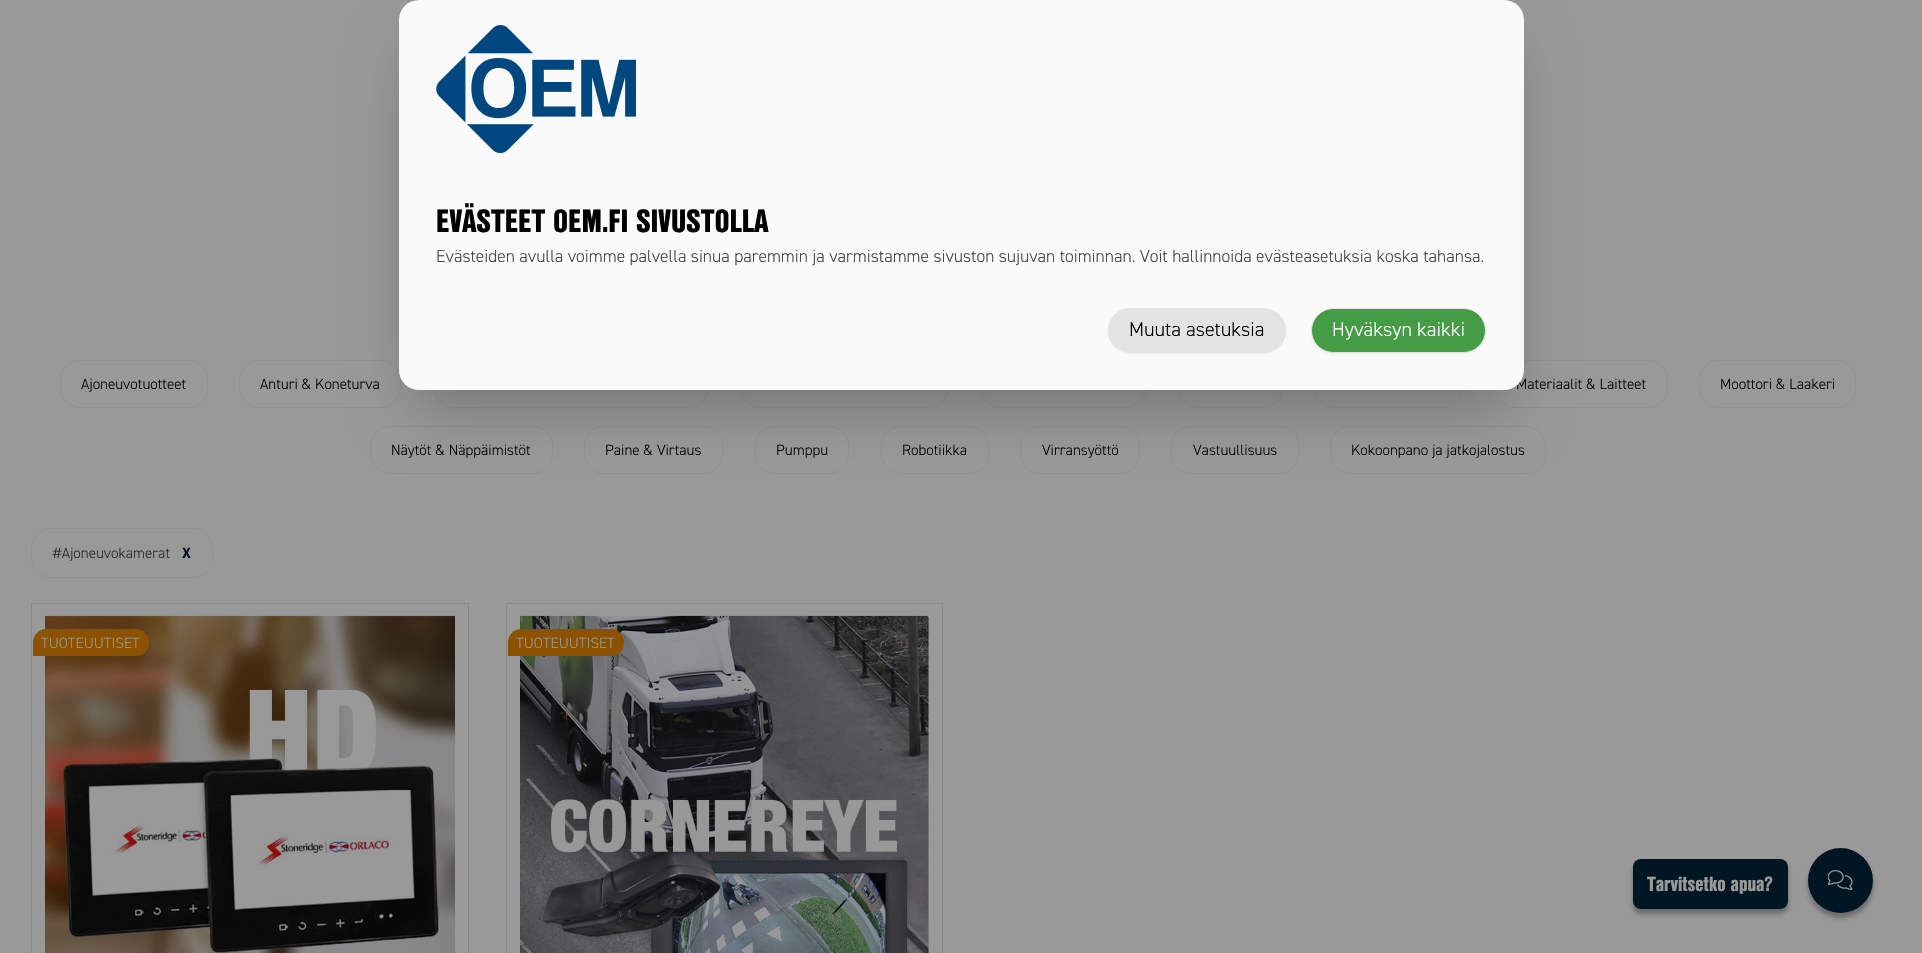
void draw(SkCanvas* canvas) {
    SkPaint paint;
    paint.setAntiAlias(true);
    canvas->clear(0xFF999999);
    paint.setStyle(SkPaint::kStroke_Style);
    paint.setStrokeWidth(1);
    paint.setColor(0xFF919191);
    canvas->drawRoundRect(SkRect::MakeXYWH(239.5f, 360.5f, 161, 47), 19.5f, 19.5f, paint);
    canvas->drawRoundRect(SkRect::MakeXYWH(434.5f, 360.5f, 274, 47), 19.5f, 19.5f, paint);
    canvas->drawRoundRect(SkRect::MakeXYWH(740.5f, 360.5f, 208, 47), 19.5f, 19.5f, paint);
    canvas->drawRoundRect(SkRect::MakeXYWH(980.5f, 360.5f, 165, 47), 19.5f, 19.5f, paint);
    canvas->drawRoundRect(SkRect::MakeXYWH(1178.5f, 360.5f, 104, 47), 19.5f, 19.5f, paint);
    canvas->drawRoundRect(SkRect::MakeXYWH(1314.5f, 360.5f, 148, 47), 19.5f, 19.5f, paint);
    canvas->drawRoundRect(SkRect::MakeXYWH(1495.5f, 360.5f, 172, 47), 19.5f, 19.5f, paint);
    canvas->drawRoundRect(SkRect::MakeXYWH(370.5f, 426.5f, 182, 47), 19.5f, 19.5f, paint);
    canvas->drawRoundRect(SkRect::MakeXYWH(584.5f, 426.5f, 138, 47), 19.5f, 19.5f, paint);
    canvas->drawRoundRect(SkRect::MakeXYWH(755.5f, 426.5f, 93, 47), 19.5f, 19.5f, paint);
    canvas->drawRoundRect(SkRect::MakeXYWH(881.5f, 426.5f, 107, 47), 19.5f, 19.5f, paint);
    canvas->drawRoundRect(SkRect::MakeXYWH(1020.5f, 426.5f, 119, 47), 19.5f, 19.5f, paint);
    canvas->drawRoundRect(SkRect::MakeXYWH(1171.5f, 426.5f, 127, 47), 19.5f, 19.5f, paint);
    canvas->drawRoundRect(SkRect::MakeXYWH(1330.5f, 426.5f, 215, 47), 19.5f, 19.5f, paint);
    paint.setStyle(SkPaint::kFill_Style);
    paint.setColor(0x40000000);
    paint.setMaskFilter(SkMaskFilter::MakeBlur(kNormal_SkBlurStyle, 31));
    canvas->drawRoundRect(SkRect::MakeXYWH(414, 46, 1095, 360), 5, 5, paint);
    paint.setMaskFilter(nullptr);
    SkFont font1(fontMgr->matchFamilyStyle("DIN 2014", SkFontStyle(300, SkFontStyle::kNormal_Width, SkFontStyle::kUpright_Slant)), 15);
    font1.setSubpixel(true);
    paint.setColor(0xFF000000);
    canvas->drawString("Materiaalit & Laitteet", 1516, 389, font1, paint);
    paint.setColor(0xFFFAFAFA);
    canvas->drawRoundRect(SkRect::MakeXYWH(399, 0, 1125, 390), 20, 20, paint);
    canvas->drawImageRect(SkImages::DeferredFromEncodedData(SkData::MakeFromFileName("img1.png")), SkRect::MakeXYWH(436, 25, 200, 128), SkSamplingOptions());
    SkFont font2(fontMgr->matchFamilyStyle("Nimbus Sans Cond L", SkFontStyle(900, SkFontStyle::kNormal_Width, SkFontStyle::kUpright_Slant)), 31.25f);
    font2.setSubpixel(true);
    paint.setColor(0xFF000000);
    canvas->drawString("EVÄSTEET OEM.FI SIVUSTOLLA", 436, 232, font2, paint);
    SkFont font3(fontMgr->matchFamilyStyle("DIN 2014", SkFontStyle(300, SkFontStyle::kNormal_Width, SkFontStyle::kUpright_Slant)), 17.5f);
    font3.setSubpixel(true);
    paint.setColor(0xFF444444);
    canvas->drawString("Evästeiden avulla voimme palvella sinua paremmin ja varmistamme sivuston sujuvan toiminnan. Voit hallinnoida evästeasetuksia koska tahansa.", 436, 262, font3, paint);
    paint.setColor(0x0D000000);
    paint.setMaskFilter(SkMaskFilter::MakeBlur(kNormal_SkBlurStyle, 1));
    canvas->drawRoundRect(SkRect::MakeXYWH(1108, 309, 178, 45), 22.5f, 22.5f, paint);
    paint.setMaskFilter(nullptr);
    paint.setColor(0xFFE3E3E3);
    canvas->drawRoundRect(SkRect::MakeXYWH(1108.5f, 308.5f, 177, 44), 22, 22, paint);
    paint.setStyle(SkPaint::kStroke_Style);
    canvas->drawRoundRect(SkRect::MakeXYWH(1108.5f, 308.5f, 177, 44), 22, 22, paint);
    SkFont font4(fontMgr->matchFamilyStyle("DIN 2014", SkFontStyle(300, SkFontStyle::kNormal_Width, SkFontStyle::kUpright_Slant)), 20);
    font4.setSubpixel(true);
    paint.setStyle(SkPaint::kFill_Style);
    paint.setColor(0xFF000000);
    canvas->drawString("Muuta asetuksia", 1129, 336, font4, paint);
    paint.setColor(0x0D000000);
    paint.setMaskFilter(SkMaskFilter::MakeBlur(kNormal_SkBlurStyle, 1));
    canvas->drawRoundRect(SkRect::MakeXYWH(1311, 309, 175, 45), 22.5f, 22.5f, paint);
    paint.setMaskFilter(nullptr);
    paint.setColor(0xFF449D44);
    canvas->drawRoundRect(SkRect::MakeXYWH(1311.5f, 308.5f, 174, 44), 22, 22, paint);
    paint.setStyle(SkPaint::kStroke_Style);
    paint.setColor(0xFFE3E3E3);
    canvas->drawRoundRect(SkRect::MakeXYWH(1311.5f, 308.5f, 174, 44), 22, 22, paint);
    paint.setStyle(SkPaint::kFill_Style);
    paint.setColor(0xFFFFFFFF);
    canvas->drawString("Hyväksyn kaikki", 1332, 336, font4, paint);
    paint.setStyle(SkPaint::kStroke_Style);
    paint.setColor(0xFF919191);
    canvas->drawRoundRect(SkRect::MakeXYWH(60.5f, 360.5f, 147, 47), 19.5f, 19.5f, paint);
    paint.setStyle(SkPaint::kFill_Style);
    paint.setColor(0xFF000000);
    canvas->drawString("Ajoneuvotuotteet", 81, 389, font1, paint);
    canvas->drawString("Anturi & Koneturva", 260, 389, font1, paint);
    paint.setStyle(SkPaint::kStroke_Style);
    paint.setColor(0xFF919191);
    canvas->drawRoundRect(SkRect::MakeXYWH(1699.5f, 360.5f, 156, 47), 19.5f, 19.5f, paint);
    paint.setStyle(SkPaint::kFill_Style);
    paint.setColor(0xFF000000);
    canvas->drawString("Moottori & Laakeri", 1720, 389, font1, paint);
    canvas->drawString("Näytöt & Näppäimistöt", 391, 455, font1, paint);
    canvas->drawString("Paine & Virtaus", 605, 455, font1, paint);
    canvas->drawString("Pumppu", 776, 455, font1, paint);
    canvas->drawString("Robotiikka", 902, 455, font1, paint);
    canvas->drawString("Virransyöttö", 1042, 455, font1, paint);
    canvas->drawString("Vastuullisuus", 1193, 455, font1, paint);
    canvas->drawString("Kokoonpano ja jatkojalostus", 1351, 455, font1, paint);
    paint.setStyle(SkPaint::kStroke_Style);
    paint.setColor(0xFF919191);
    canvas->drawRoundRect(SkRect::MakeXYWH(31.5f, 528.5f, 181, 49), 19.5f, 19.5f, paint);
    paint.setStyle(SkPaint::kFill_Style);
    paint.setColor(0xFF292929);
    canvas->drawString("#Ajoneuvokamerat", 53, 558, font1, paint);
    SkFont font5(fontMgr->matchFamilyStyle("DIN 2014", SkFontStyle::Bold()), 15);
    font5.setSubpixel(true);
    paint.setColor(0xFF001723);
    canvas->drawString("X", 182, 558, font5, paint);
    paint.setStyle(SkPaint::kStroke_Style);
    paint.setColor(0xFF888888);
    canvas->drawRect(SkRect::MakeXYWH(31.5f, 603.5f, 437, 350), paint);
    canvas->drawImageRect(SkImages::DeferredFromEncodedData(SkData::MakeFromFileName("img2.png")), SkRect::MakeXYWH(45, 615, 410, 338), SkSamplingOptions());
    paint.setStyle(SkPaint::kFill_Style);
    paint.setColor(0xFF8C5200);
    canvas->drawPath(SkPathBuilder().moveTo(46, 629).lineTo(136, 629).cubicTo(143, 629, 149, 635, 149, 642).lineTo(149, 643).cubicTo(149, 650, 143, 656, 136, 656).lineTo(33, 656).lineTo(33, 642).cubicTo(33, 635, 39, 629, 46, 629).close().detach(), paint);
    paint.setColor(0xFF999999);
    canvas->drawString("TUOTEUUTISET", 41, 648, font1, paint);
    paint.setStyle(SkPaint::kStroke_Style);
    paint.setColor(0xFF888888);
    canvas->drawRect(SkRect::MakeXYWH(506.5f, 603.5f, 436, 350), paint);
    canvas->drawImageRect(SkImages::DeferredFromEncodedData(SkData::MakeFromFileName("img3.png")), SkRect::MakeXYWH(520, 615, 409, 338), SkSamplingOptions());
    paint.setStyle(SkPaint::kFill_Style);
    paint.setColor(0xFF8C5200);
    canvas->drawPath(SkPathBuilder().moveTo(521, 629).lineTo(611, 629).cubicTo(618, 629, 624, 635, 624, 642).lineTo(624, 643).cubicTo(624, 650, 618, 656, 611, 656).lineTo(508, 656).lineTo(508, 642).cubicTo(508, 635, 514, 629, 521, 629).close().detach(), paint);
    paint.setColor(0xFF999999);
    canvas->drawString("TUOTEUUTISET", 516, 648, font1, paint);
    paint.setColor(0x4D000000);
    paint.setMaskFilter(SkMaskFilter::MakeBlur(kNormal_SkBlurStyle, 2.5f));
    canvas->drawRoundRect(SkRect::MakeXYWH(1633, 864, 155, 50), 8, 8, paint);
    paint.setMaskFilter(nullptr);
    paint.setColor(0xFF001723);
    canvas->drawRoundRect(SkRect::MakeXYWH(1633, 859, 155, 50), 8, 8, paint);
    SkFont font6(fontMgr->matchFamilyStyle("Nimbus Sans Cond L", SkFontStyle(900, SkFontStyle::kNormal_Width, SkFontStyle::kUpright_Slant)), 20);
    font6.setSubpixel(true);
    paint.setColor(0xFF999999);
    canvas->drawString("Tarvitsetko apua?", 1647, 891, font6, paint);
    paint.setColor(0x4D000000);
    paint.setMaskFilter(SkMaskFilter::MakeBlur(kNormal_SkBlurStyle, 2.5f));
    canvas->drawRoundRect(SkRect::MakeXYWH(1808, 853, 65, 65), 32.5f, 32.5f, paint);
    paint.setMaskFilter(nullptr);
    paint.setColor(0xFF001723);
    canvas->drawCircle(1840.5f, 880.5f, 32.5f, paint);
    canvas->drawImageRect(SkImages::DeferredFromEncodedData(SkData::MakeFromFileName("img4.png")), SkRect::MakeXYWH(1828, 870, 25, 20), SkSamplingOptions());
}
